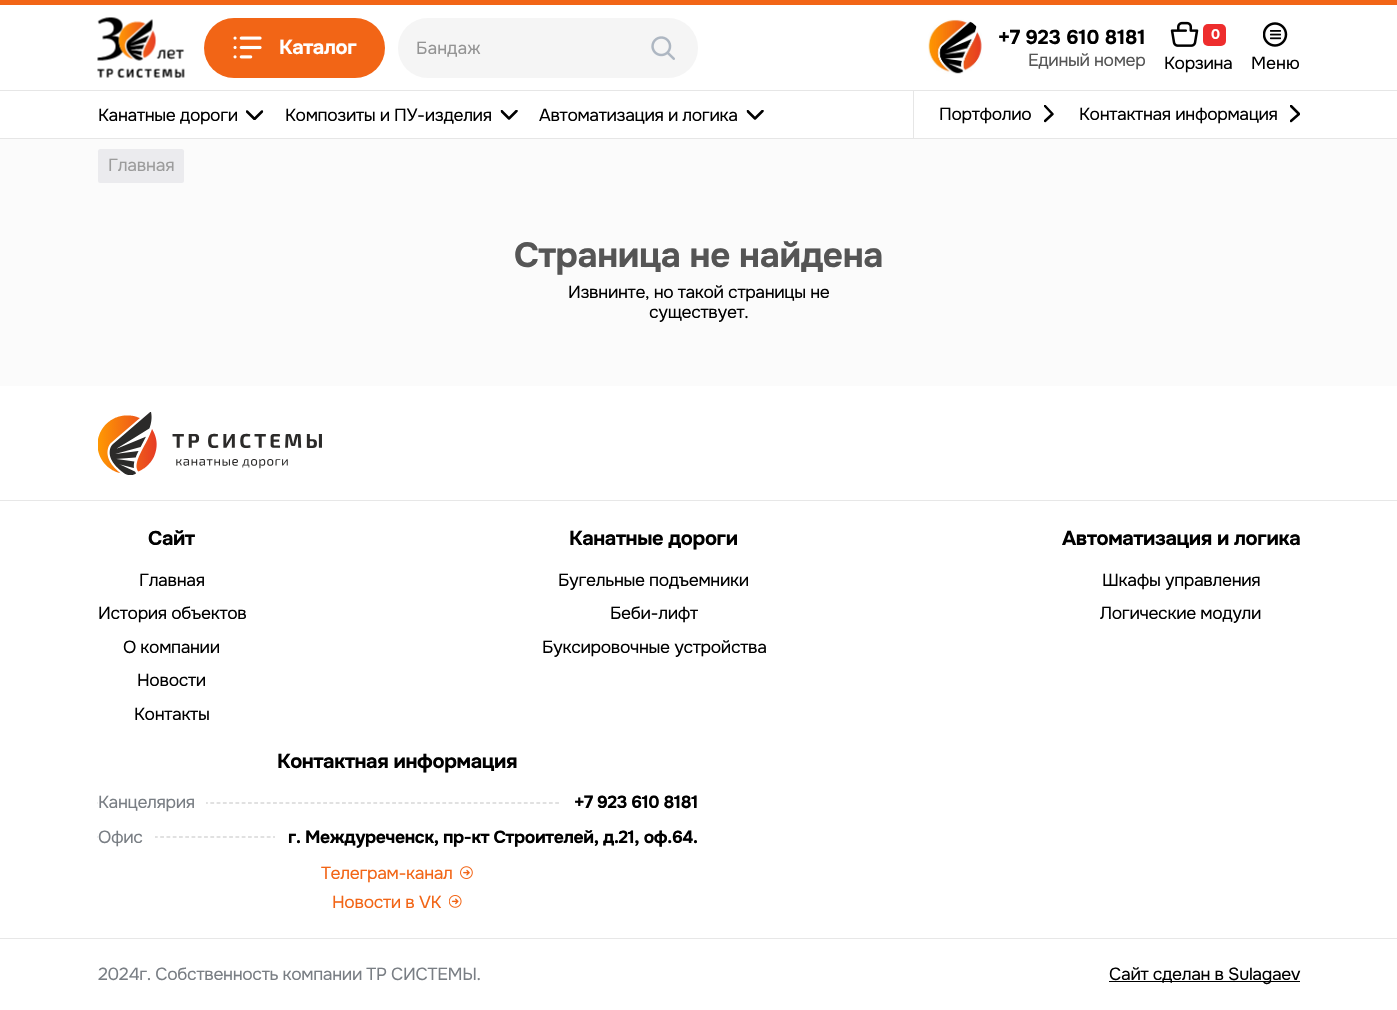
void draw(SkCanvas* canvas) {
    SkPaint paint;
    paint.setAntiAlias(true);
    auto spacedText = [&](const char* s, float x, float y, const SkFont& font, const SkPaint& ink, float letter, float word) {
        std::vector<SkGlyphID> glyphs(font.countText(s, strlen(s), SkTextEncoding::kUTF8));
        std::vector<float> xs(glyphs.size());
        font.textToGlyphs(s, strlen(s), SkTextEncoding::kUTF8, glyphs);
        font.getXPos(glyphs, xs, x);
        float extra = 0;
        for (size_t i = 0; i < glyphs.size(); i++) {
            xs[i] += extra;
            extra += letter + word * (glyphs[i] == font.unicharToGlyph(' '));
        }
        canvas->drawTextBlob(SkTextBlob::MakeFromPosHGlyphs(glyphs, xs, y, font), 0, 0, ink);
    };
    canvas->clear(0xFFFBFBFB);
    paint.setColor(0xFFFFFFFF);
    canvas->drawRect(SkRect::MakeXYWH(0, 5, 1397, 133), paint);
    paint.setColor(0xFFF26516);
    canvas->drawRect(SkRect::MakeXYWH(0, 0, 1397, 5), paint);
    paint.setColor(0xFFE6E6E6);
    canvas->drawRect(SkRect::MakeXYWH(0, 90, 1397, 1), paint);
    canvas->drawImageRect(SkImages::DeferredFromEncodedData(SkData::MakeFromFileName("img1.png")), SkRect::MakeXYWH(97, 17, 88, 61), SkSamplingOptions());
    paint.setColor(0xFFF26516);
    canvas->drawRoundRect(SkRect::MakeXYWH(204, 18, 181, 60), 30, 30, paint);
    canvas->drawImageRect(SkImages::DeferredFromEncodedData(SkData::MakeFromFileName("img2.png")), SkRect::MakeXYWH(233, 36, 29, 23), SkSamplingOptions());
    SkFont font1(fontMgr->matchFamilyStyle("Onest", SkFontStyle::Bold()), 20);
    font1.setSubpixel(true);
    paint.setColor(0xFFFFFFFF);
    spacedText("Каталог", 279, 54, font1, paint, -0.35f, 0);
    paint.setColor(0xFFF5F5F5);
    canvas->drawRoundRect(SkRect::MakeXYWH(398, 18, 300, 60), 30, 30, paint);
    SkFont font2(fontMgr->matchFamilyStyle("Onest", SkFontStyle::Normal()), 17.5f);
    font2.setSubpixel(true);
    paint.setColor(0xFF949494);
    canvas->drawString("Бандаж", 416, 54, font2, paint);
    canvas->drawImageRect(SkImages::DeferredFromEncodedData(SkData::MakeFromFileName("img3.png")), SkRect::MakeXYWH(651, 36, 24, 24), SkSamplingOptions());
    canvas->drawImageRect(SkImages::DeferredFromEncodedData(SkData::MakeFromFileName("img4.png")), SkRect::MakeXYWH(928, 19, 54, 55), SkSamplingOptions());
    paint.setColor(0xFF000000);
    canvas->drawString("+7 923 610 8181", 998, 44, font1, paint);
    paint.setColor(0xFF555555);
    spacedText("Единый номер", 1028, 66, font2, paint, -0.35f, 0);
    canvas->drawImageRect(SkImages::DeferredFromEncodedData(SkData::MakeFromFileName("img5.png")), SkRect::MakeXYWH(1170, 21, 29, 26), SkSamplingOptions());
    paint.setColor(0xFFEE2D2D);
    canvas->drawRoundRect(SkRect::MakeXYWH(1203, 24, 23, 22), 5, 5, paint);
    SkFont font3(fontMgr->matchFamilyStyle("Onest", SkFontStyle::Bold()), 14);
    font3.setSubpixel(true);
    paint.setColor(0xFFFFFFFF);
    spacedText("0", 1211, 39, font3, paint, -0.35f, 0);
    paint.setColor(0xFF000000);
    spacedText("Корзина", 1164, 69, font2, paint, -0.35f, 0);
    canvas->drawImageRect(SkImages::DeferredFromEncodedData(SkData::MakeFromFileName("img6.png")), SkRect::MakeXYWH(1263, 22, 25, 25), SkSamplingOptions());
    canvas->drawString("Меню", 1251, 69, font2, paint);
    paint.setColor(0xFFE6E6E6);
    canvas->drawRect(SkRect::MakeXYWH(0, 138, 1397, 1), paint);
    paint.setColor(0xFF000000);
    spacedText("Канатные дороги", 98, 121, font2, paint, -0.35f, 0);
    canvas->save();
    canvas->clipPath(SkPathBuilder().moveTo(263.5f, 110).lineTo(263.5f, 120).lineTo(246, 120).lineTo(246, 110).close().detach(), true);
    canvas->clipPath(SkPathBuilder().moveTo(263.5f, 110).lineTo(263.5f, 120).lineTo(246, 120).lineTo(246, 110).close().detach(), true);
    paint.setStyle(SkPaint::kStroke_Style);
    paint.setStrokeWidth(2.5f);
    paint.setStrokeCap(SkPaint::kRound_Cap);
    paint.setStrokeJoin(SkPaint::kRound_Join);
    canvas->drawPath(SkPathBuilder().moveTo(247, 111.5f).lineTo(254.5f, 119).lineTo(262, 111.5f).detach(), paint);
    canvas->restore();
    paint.setStyle(SkPaint::kFill_Style);
    spacedText("Композиты и ПУ-изделия", 285, 121, font2, paint, -0.35f, 0);
    canvas->save();
    canvas->clipPath(SkPathBuilder().moveTo(518, 110).lineTo(518, 120).lineTo(500.5f, 120).lineTo(500.5f, 110).close().detach(), true);
    canvas->clipPath(SkPathBuilder().moveTo(518, 110).lineTo(518, 120).lineTo(500.5f, 120).lineTo(500.5f, 110).close().detach(), true);
    paint.setStyle(SkPaint::kStroke_Style);
    canvas->drawPath(SkPathBuilder().moveTo(501.5f, 111).lineTo(509, 118.5f).lineTo(516.5f, 111).detach(), paint);
    canvas->restore();
    paint.setStyle(SkPaint::kFill_Style);
    spacedText("Автоматизация и логика", 539, 121, font2, paint, -0.35f, 0);
    canvas->save();
    canvas->clipPath(SkPathBuilder().moveTo(764, 110).lineTo(764, 120).lineTo(746.5f, 120).lineTo(746.5f, 110).close().detach(), true);
    canvas->clipPath(SkPathBuilder().moveTo(764, 110).lineTo(764, 120).lineTo(746.5f, 120).lineTo(746.5f, 110).close().detach(), true);
    paint.setStyle(SkPaint::kStroke_Style);
    canvas->drawPath(SkPathBuilder().moveTo(747.5f, 111).lineTo(755, 118.5f).lineTo(762.5f, 111).detach(), paint);
    canvas->restore();
    paint.setStyle(SkPaint::kFill_Style);
    paint.setColor(0xFFE6E6E6);
    canvas->drawRect(SkRect::MakeXYWH(913, 91, 1, 47), paint);
    paint.setColor(0xFF000000);
    spacedText("Портфолио", 939, 120, font2, paint, -0.35f, 0);
    canvas->save();
    canvas->clipRect(SkRect::MakeXYWH(1044, 105, 10, 18));
    paint.setStyle(SkPaint::kStroke_Style);
    canvas->drawPath(SkPathBuilder().moveTo(1045, 121).lineTo(1052.5f, 114).lineTo(1045, 106).detach(), paint);
    canvas->restore();
    paint.setStyle(SkPaint::kFill_Style);
    spacedText("Контактная информация", 1079, 120, font2, paint, -0.35f, 0);
    canvas->save();
    canvas->clipRect(SkRect::MakeXYWH(1290, 105, 10, 18));
    paint.setStyle(SkPaint::kStroke_Style);
    canvas->drawPath(SkPathBuilder().moveTo(1291, 121).lineTo(1299, 114).lineTo(1291, 106).detach(), paint);
    canvas->restore();
    paint.setStyle(SkPaint::kFill_Style);
    paint.setColor(0xFFEBEBEE);
    canvas->drawRoundRect(SkRect::MakeXYWH(98, 149, 86, 34), 2.5f, 2.5f, paint);
    paint.setColor(0xFF9C9C9C);
    spacedText("Главная", 108, 171, font2, paint, -0.25f, 0);
    SkFont font4(fontMgr->matchFamilyStyle("Onest", SkFontStyle::Bold()), 35);
    font4.setSubpixel(true);
    paint.setColor(0xFF555555);
    spacedText("Страница не найдена", 514, 267, font4, paint, -0.35f, 0);
    paint.setColor(0xFF000000);
    spacedText("Извнинте, но такой страницы не", 568, 298, font2, paint, -0.35f, 0);
    spacedText("существует.", 649, 318, font2, paint, -0.35f, 0);
    paint.setColor(0xFFFFFFFF);
    canvas->drawRect(SkRect::MakeXYWH(0, 386, 1397, 624), paint);
    paint.setColor(0xFFE7E7E7);
    canvas->drawRect(SkRect::MakeXYWH(0, 500, 1397, 1), paint);
    canvas->drawImageRect(SkImages::DeferredFromEncodedData(SkData::MakeFromFileName("img7.png")), SkRect::MakeXYWH(98, 412, 224, 63), SkSamplingOptions());
    canvas->drawRect(SkRect::MakeXYWH(0, 938, 1397, 1), paint);
    paint.setColor(0xFF000000);
    spacedText("Сайт", 148, 545, font1, paint, -0.35f, 0);
    spacedText("Главная", 139, 586, font2, paint, -0.35f, 0);
    spacedText("История объектов", 98, 619, font2, paint, -0.35f, 0);
    spacedText("О компании", 123, 653, font2, paint, -0.35f, 0);
    spacedText("Новости", 137, 686, font2, paint, -0.35f, 0);
    spacedText("Контакты", 134, 720, font2, paint, -0.35f, 0);
    spacedText("Канатные дороги", 569, 545, font1, paint, -0.35f, 0);
    spacedText("Бугельные подъемники", 558, 586, font2, paint, -0.35f, 0);
    spacedText("Беби-лифт", 610, 619, font2, paint, -0.35f, 0);
    spacedText("Буксировочные устройства", 542, 653, font2, paint, -0.35f, 0);
    spacedText("Автоматизация и логика", 1062, 545, font1, paint, -0.35f, 0);
    spacedText("Шкафы управления", 1102, 586, font2, paint, -0.35f, 0);
    spacedText("Логические модули", 1100, 619, font2, paint, -0.35f, 0);
    spacedText("Контактная информация", 277, 768, font1, paint, -0.35f, 0);
    paint.setStyle(SkPaint::kStroke_Style);
    paint.setStrokeWidth(1.2f);
    paint.setStrokeCap(SkPaint::kButt_Cap);
    paint.setStrokeJoin(SkPaint::kMiter_Join);
    paint.setColor(0xFFC3C3C3);
    paint.setPathEffect(SkDashPathEffect::Make({{3.75f, 2.52f}}, 0));
    canvas->drawPath(SkPathBuilder().moveTo(97.5f, 803).lineTo(697.5f, 803).detach(), paint);
    paint.setPathEffect(nullptr);
    paint.setStyle(SkPaint::kFill_Style);
    paint.setColor(0xFFFFFFFF);
    canvas->drawRect(SkRect::MakeXYWH(98, 802, 108, 2), paint);
    paint.setColor(0xFF797E84);
    spacedText("Канцелярия", 98, 808, font2, paint, -0.35f, 0);
    paint.setColor(0xFFFFFFFF);
    canvas->drawRect(SkRect::MakeXYWH(561, 802, 136, 2), paint);
    SkFont font5(fontMgr->matchFamilyStyle("Onest", SkFontStyle::Bold()), 17.5f);
    font5.setSubpixel(true);
    paint.setColor(0xFF000000);
    spacedText("+7 923 610 8181", 574, 808, font5, paint, -0.35f, 0);
    paint.setStyle(SkPaint::kStroke_Style);
    paint.setColor(0xFFC3C3C3);
    paint.setPathEffect(SkDashPathEffect::Make({{3.75f, 2.52f}}, 0));
    canvas->drawPath(SkPathBuilder().moveTo(97.5f, 837).lineTo(697.5f, 837).detach(), paint);
    paint.setPathEffect(nullptr);
    paint.setStyle(SkPaint::kFill_Style);
    paint.setColor(0xFFFFFFFF);
    canvas->drawRect(SkRect::MakeXYWH(98, 836, 57, 2), paint);
    paint.setColor(0xFF797E84);
    spacedText("Офис", 98, 843, font2, paint, -0.35f, 0);
    paint.setColor(0xFFFFFFFF);
    canvas->drawRect(SkRect::MakeXYWH(275, 836, 422, 2), paint);
    paint.setColor(0xFF000000);
    spacedText("г. Междуреченск, пр-кт Строителей, д.21, оф.64.", 288, 843, font5, paint, -0.35f, 0);
    paint.setColor(0xFFF26516);
    spacedText("Телеграм-канал", 321, 879, font2, paint, -0.35f, 0);
    canvas->drawImageRect(SkImages::DeferredFromEncodedData(SkData::MakeFromFileName("img8.png")), SkRect::MakeXYWH(460, 866, 13, 13), SkSamplingOptions());
    spacedText("Новости в VK", 332, 908, font2, paint, -0.35f, 0);
    canvas->drawImageRect(SkImages::DeferredFromEncodedData(SkData::MakeFromFileName("img9.png")), SkRect::MakeXYWH(449, 895, 13, 13), SkSamplingOptions());
    paint.setColor(0xFF797E84);
    spacedText("2024г. Собственность компании ТР СИСТЕМЫ.", 98, 980, font2, paint, -0.35f, 0);
    paint.setColor(0xFF000000);
    canvas->drawRect(SkRect::MakeXYWH(1109, 981, 191, 1), paint);
    spacedText("Сайт сделан в Sulagaev", 1109, 980, font2, paint, -0.35f, 0);
}
